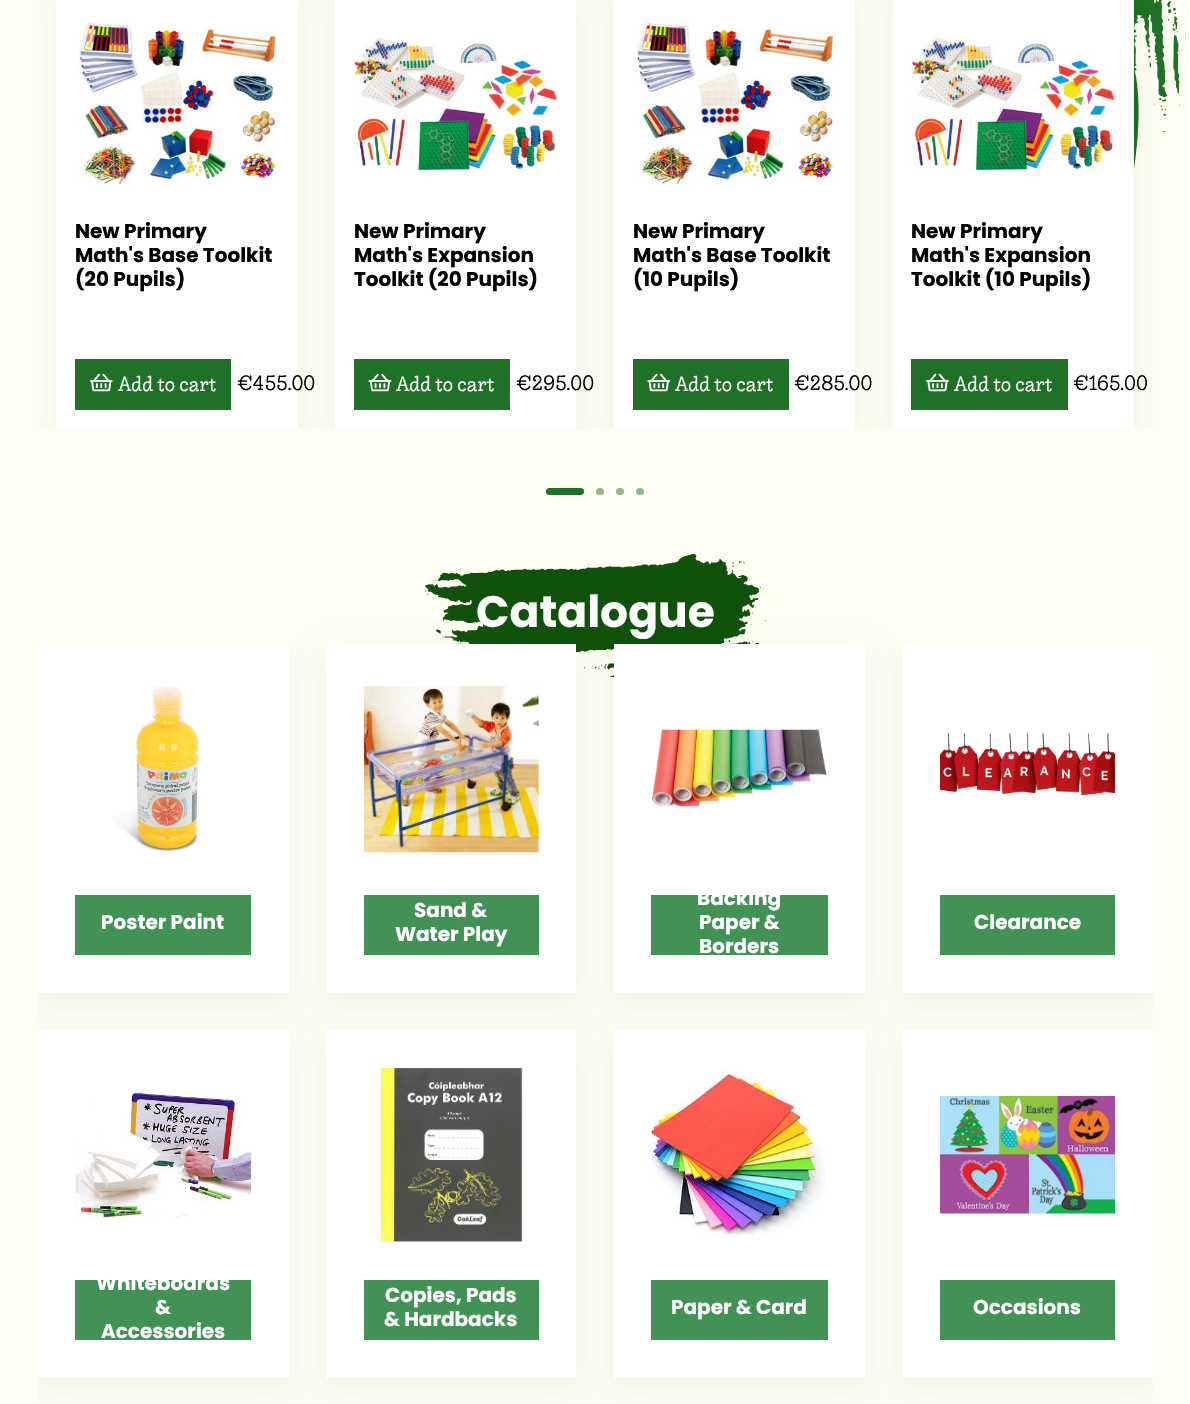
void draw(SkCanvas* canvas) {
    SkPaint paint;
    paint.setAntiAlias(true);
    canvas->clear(0xFFFFFEF2);
    canvas->drawImageRect(SkImages::DeferredFromEncodedData(SkData::MakeFromFileName("img1.png")), SkRect::MakeXYWH(1134, 0, 52, 169), SkSamplingOptions());
    canvas->save();
    canvas->clipRect(SkRect::MakeXYWH(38, 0, 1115, 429));
    paint.setColor(0x0D000000);
    paint.setMaskFilter(SkMaskFilter::MakeBlur(kNormal_SkBlurStyle, 12.5f));
    canvas->drawRect(SkRect::MakeXYWH(56, -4, 242, 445), paint);
    paint.setMaskFilter(nullptr);
    canvas->restore();
    paint.setColor(0xFFFFFFFF);
    canvas->drawRect(SkRect::MakeXYWH(56, 0, 242, 429), paint);
    canvas->drawImageRect(SkImages::DeferredFromEncodedData(SkData::MakeFromFileName("img2.png")), SkRect::MakeXYWH(77, 21, 200, 164), SkSamplingOptions());
    SkFont font1(fontMgr->matchFamilyStyle("Poppins", SkFontStyle::Bold()), 20);
    font1.setSubpixel(true);
    paint.setColor(0xFF000000);
    canvas->drawString("New Primary", 75, 238, font1, paint);
    canvas->drawString("Math's Base Toolkit", 75, 262, font1, paint);
    canvas->drawString("(20 Pupils)", 75, 286, font1, paint);
    paint.setColor(0xFF1E7126);
    canvas->drawRect(SkRect::MakeXYWH(75, 359, 156, 51), paint);
    canvas->drawImageRect(SkImages::DeferredFromEncodedData(SkData::MakeFromFileName("img3.png")), SkRect::MakeXYWH(90, 373, 23, 19), SkSamplingOptions());
    SkFont font2(fontMgr->matchFamilyStyle("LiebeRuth", SkFontStyle::Normal()), 20);
    font2.setSubpixel(true);
    paint.setColor(0xFFFFFFFF);
    canvas->drawString("Add to cart", 118, 391, font2, paint);
    paint.setColor(0xFF000000);
    canvas->drawString("€455.00", 237, 390, font2, paint);
    canvas->save();
    canvas->clipRect(SkRect::MakeXYWH(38, 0, 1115, 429));
    paint.setColor(0x0D000000);
    paint.setMaskFilter(SkMaskFilter::MakeBlur(kNormal_SkBlurStyle, 12.5f));
    canvas->drawRect(SkRect::MakeXYWH(335, -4, 241, 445), paint);
    paint.setMaskFilter(nullptr);
    canvas->restore();
    paint.setColor(0xFFFFFFFF);
    canvas->drawRect(SkRect::MakeXYWH(335, 0, 241, 429), paint);
    canvas->drawImageRect(SkImages::DeferredFromEncodedData(SkData::MakeFromFileName("img4.png")), SkRect::MakeXYWH(353, 36, 205, 135), SkSamplingOptions());
    paint.setColor(0xFF000000);
    canvas->drawString("New Primary", 354, 238, font1, paint);
    canvas->drawString("Math's Expansion", 354, 262, font1, paint);
    canvas->drawString("Toolkit (20 Pupils)", 354, 286, font1, paint);
    paint.setColor(0xFF1E7126);
    canvas->drawRect(SkRect::MakeXYWH(354, 359, 156, 51), paint);
    canvas->drawImageRect(SkImages::DeferredFromEncodedData(SkData::MakeFromFileName("img5.png")), SkRect::MakeXYWH(368, 373, 24, 19), SkSamplingOptions());
    paint.setColor(0xFFFFFFFF);
    canvas->drawString("Add to cart", 396, 391, font2, paint);
    paint.setColor(0xFF000000);
    canvas->drawString("€295.00", 516, 390, font2, paint);
    canvas->save();
    canvas->clipRect(SkRect::MakeXYWH(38, 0, 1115, 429));
    paint.setColor(0x0D000000);
    paint.setMaskFilter(SkMaskFilter::MakeBlur(kNormal_SkBlurStyle, 12.5f));
    canvas->drawRect(SkRect::MakeXYWH(614, -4, 241, 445), paint);
    paint.setMaskFilter(nullptr);
    canvas->restore();
    paint.setColor(0xFFFFFFFF);
    canvas->drawRect(SkRect::MakeXYWH(614, 0, 241, 429), paint);
    canvas->drawImageRect(SkImages::DeferredFromEncodedData(SkData::MakeFromFileName("img6.png")), SkRect::MakeXYWH(635, 21, 199, 164), SkSamplingOptions());
    paint.setColor(0xFF000000);
    canvas->drawString("New Primary", 633, 238, font1, paint);
    canvas->drawString("Math's Base Toolkit", 633, 262, font1, paint);
    canvas->drawString("(10 Pupils)", 633, 286, font1, paint);
    paint.setColor(0xFF1E7126);
    canvas->drawRect(SkRect::MakeXYWH(633, 359, 156, 51), paint);
    canvas->drawImageRect(SkImages::DeferredFromEncodedData(SkData::MakeFromFileName("img7.png")), SkRect::MakeXYWH(647, 373, 23, 19), SkSamplingOptions());
    paint.setColor(0xFFFFFFFF);
    canvas->drawString("Add to cart", 675, 391, font2, paint);
    paint.setColor(0xFF000000);
    canvas->drawString("€285.00", 794, 390, font2, paint);
    canvas->save();
    canvas->clipRect(SkRect::MakeXYWH(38, 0, 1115, 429));
    paint.setColor(0x0D000000);
    paint.setMaskFilter(SkMaskFilter::MakeBlur(kNormal_SkBlurStyle, 12.5f));
    canvas->drawRect(SkRect::MakeXYWH(893, -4, 241, 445), paint);
    paint.setMaskFilter(nullptr);
    canvas->restore();
    paint.setColor(0xFFFFFFFF);
    canvas->drawRect(SkRect::MakeXYWH(893, 0, 241, 429), paint);
    canvas->drawImageRect(SkImages::DeferredFromEncodedData(SkData::MakeFromFileName("img8.png")), SkRect::MakeXYWH(911, 36, 204, 135), SkSamplingOptions());
    paint.setColor(0xFF000000);
    canvas->drawString("New Primary", 911, 238, font1, paint);
    canvas->drawString("Math's Expansion", 911, 262, font1, paint);
    canvas->drawString("Toolkit (10 Pupils)", 911, 286, font1, paint);
    paint.setColor(0xFF1E7126);
    canvas->drawRect(SkRect::MakeXYWH(911, 359, 157, 51), paint);
    canvas->drawImageRect(SkImages::DeferredFromEncodedData(SkData::MakeFromFileName("img9.png")), SkRect::MakeXYWH(926, 373, 23, 19), SkSamplingOptions());
    paint.setColor(0xFFFFFFFF);
    canvas->drawString("Add to cart", 954, 391, font2, paint);
    paint.setColor(0xFF000000);
    canvas->drawString("€165.00", 1073, 390, font2, paint);
    paint.setColor(0xFF1E7126);
    canvas->drawRoundRect(SkRect::MakeXYWH(546, 488, 38, 7), 3.5f, 3.5f, paint);
    paint.setColor(0xFF8FB88C);
    canvas->drawRoundRect(SkRect::MakeXYWH(596, 488, 8, 7), 3.5f, 3.5f, paint);
    canvas->drawRoundRect(SkRect::MakeXYWH(616, 488, 8, 7), 3.5f, 3.5f, paint);
    canvas->drawRoundRect(SkRect::MakeXYWH(636, 488, 8, 7), 3.5f, 3.5f, paint);
    canvas->drawImageRect(SkImages::DeferredFromEncodedData(SkData::MakeFromFileName("img10.png")), SkRect::MakeXYWH(425, 554, 341, 124), SkSamplingOptions());
    SkFont font3(fontMgr->matchFamilyStyle("Poppins", SkFontStyle::Bold()), 44);
    font3.setSubpixel(true);
    paint.setColor(0xFFFFFFFF);
    canvas->drawString("Catalogue", 476, 627, font3, paint);
    canvas->save();
    canvas->clipRect(SkRect::MakeXYWH(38, 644, 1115, 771));
    paint.setColor(0x0D000000);
    paint.setMaskFilter(SkMaskFilter::MakeBlur(kNormal_SkBlurStyle, 12.5f));
    canvas->drawRect(SkRect::MakeXYWH(38, 656, 251, 349), paint);
    paint.setMaskFilter(nullptr);
    canvas->restore();
    paint.setColor(0xFFFFFFFF);
    canvas->drawRect(SkRect::MakeXYWH(38, 644, 251, 349), paint);
    canvas->drawImageRect(SkImages::DeferredFromEncodedData(SkData::MakeFromFileName("img11.png")), SkRect::MakeXYWH(112, 686, 89, 166), SkSamplingOptions());
    paint.setColor(0xFF429255);
    canvas->drawRect(SkRect::MakeXYWH(75, 895, 176, 60), paint);
    paint.setColor(0xFFFFFFFF);
    canvas->drawString("Poster Paint", 101, 929, font1, paint);
    paint.setColor(0x0D000000);
    paint.setMaskFilter(SkMaskFilter::MakeBlur(kNormal_SkBlurStyle, 12.5f));
    canvas->drawRect(SkRect::MakeXYWH(326, 656, 250, 349), paint);
    paint.setMaskFilter(nullptr);
    paint.setColor(0xFFFFFFFF);
    canvas->drawRect(SkRect::MakeXYWH(326, 644, 250, 349), paint);
    canvas->drawImageRect(SkImages::DeferredFromEncodedData(SkData::MakeFromFileName("img12.png")), SkRect::MakeXYWH(363, 686, 176, 167), SkSamplingOptions());
    paint.setColor(0xFF429255);
    canvas->drawRect(SkRect::MakeXYWH(364, 895, 175, 60), paint);
    paint.setColor(0xFFFFFFFF);
    canvas->drawString("Sand &", 414, 917, font1, paint);
    canvas->drawString("Water Play", 395, 941, font1, paint);
    paint.setColor(0x0D000000);
    paint.setMaskFilter(SkMaskFilter::MakeBlur(kNormal_SkBlurStyle, 12.5f));
    canvas->drawRect(SkRect::MakeXYWH(614, 656, 251, 349), paint);
    paint.setMaskFilter(nullptr);
    paint.setColor(0xFFFFFFFF);
    canvas->drawRect(SkRect::MakeXYWH(614, 644, 251, 349), paint);
    canvas->drawImageRect(SkImages::DeferredFromEncodedData(SkData::MakeFromFileName("img13.png")), SkRect::MakeXYWH(652, 729, 175, 79), SkSamplingOptions());
    paint.setColor(0xFF429255);
    canvas->drawRect(SkRect::MakeXYWH(651, 895, 177, 60), paint);
    paint.setColor(0xFFFFFFFF);
    canvas->drawString("Backing", 697, 905, font1, paint);
    canvas->drawString("Paper &", 699, 929, font1, paint);
    canvas->drawString("Borders", 699, 953, font1, paint);
    canvas->save();
    canvas->clipRect(SkRect::MakeXYWH(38, 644, 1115, 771));
    paint.setColor(0x0D000000);
    paint.setMaskFilter(SkMaskFilter::MakeBlur(kNormal_SkBlurStyle, 12.5f));
    canvas->drawRect(SkRect::MakeXYWH(903, 656, 250, 349), paint);
    paint.setMaskFilter(nullptr);
    canvas->restore();
    paint.setColor(0xFFFFFFFF);
    canvas->drawRect(SkRect::MakeXYWH(903, 644, 250, 349), paint);
    canvas->drawImageRect(SkImages::DeferredFromEncodedData(SkData::MakeFromFileName("img14.png")), SkRect::MakeXYWH(940, 733, 175, 63), SkSamplingOptions());
    paint.setColor(0xFF429255);
    canvas->drawRect(SkRect::MakeXYWH(940, 895, 175, 60), paint);
    paint.setColor(0xFFFFFFFF);
    canvas->drawString("Clearance", 974, 929, font1, paint);
    canvas->save();
    canvas->clipRect(SkRect::MakeXYWH(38, 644, 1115, 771));
    paint.setColor(0x0D000000);
    paint.setMaskFilter(SkMaskFilter::MakeBlur(kNormal_SkBlurStyle, 12.5f));
    canvas->drawRect(SkRect::MakeXYWH(38, 1043, 251, 347), paint);
    paint.setMaskFilter(nullptr);
    canvas->restore();
    paint.setColor(0xFFFFFFFF);
    canvas->drawRect(SkRect::MakeXYWH(38, 1030, 251, 348), paint);
    canvas->drawImageRect(SkImages::DeferredFromEncodedData(SkData::MakeFromFileName("img15.png")), SkRect::MakeXYWH(75, 1091, 177, 128), SkSamplingOptions());
    paint.setColor(0xFF429255);
    canvas->drawRect(SkRect::MakeXYWH(75, 1280, 176, 60), paint);
    paint.setColor(0xFFFFFFFF);
    canvas->drawString("Whiteboards", 96, 1290, font1, paint);
    canvas->drawString("&", 155, 1314, font1, paint);
    canvas->drawString("Accessories", 101, 1338, font1, paint);
    paint.setColor(0x0D000000);
    paint.setMaskFilter(SkMaskFilter::MakeBlur(kNormal_SkBlurStyle, 12.5f));
    canvas->drawRect(SkRect::MakeXYWH(326, 1043, 250, 347), paint);
    paint.setMaskFilter(nullptr);
    paint.setColor(0xFFFFFFFF);
    canvas->drawRect(SkRect::MakeXYWH(326, 1030, 250, 348), paint);
    canvas->drawImageRect(SkImages::DeferredFromEncodedData(SkData::MakeFromFileName("img16.png")), SkRect::MakeXYWH(380, 1067, 143, 175), SkSamplingOptions());
    paint.setColor(0xFF429255);
    canvas->drawRect(SkRect::MakeXYWH(364, 1280, 175, 60), paint);
    paint.setColor(0xFFFFFFFF);
    canvas->drawString("Copies, Pads", 385, 1302, font1, paint);
    canvas->drawString("& Hardbacks", 384, 1326, font1, paint);
    paint.setColor(0x0D000000);
    paint.setMaskFilter(SkMaskFilter::MakeBlur(kNormal_SkBlurStyle, 12.5f));
    canvas->drawRect(SkRect::MakeXYWH(614, 1043, 251, 347), paint);
    paint.setMaskFilter(nullptr);
    paint.setColor(0xFFFFFFFF);
    canvas->drawRect(SkRect::MakeXYWH(614, 1030, 251, 348), paint);
    canvas->drawImageRect(SkImages::DeferredFromEncodedData(SkData::MakeFromFileName("img17.png")), SkRect::MakeXYWH(651, 1067, 176, 172), SkSamplingOptions());
    paint.setColor(0xFF429255);
    canvas->drawRect(SkRect::MakeXYWH(651, 1280, 177, 60), paint);
    paint.setColor(0xFFFFFFFF);
    canvas->drawString("Paper & Card", 671, 1314, font1, paint);
    canvas->save();
    canvas->clipRect(SkRect::MakeXYWH(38, 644, 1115, 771));
    paint.setColor(0x0D000000);
    paint.setMaskFilter(SkMaskFilter::MakeBlur(kNormal_SkBlurStyle, 12.5f));
    canvas->drawRect(SkRect::MakeXYWH(903, 1043, 250, 347), paint);
    paint.setMaskFilter(nullptr);
    canvas->restore();
    paint.setColor(0xFFFFFFFF);
    canvas->drawRect(SkRect::MakeXYWH(903, 1030, 250, 348), paint);
    canvas->drawImageRect(SkImages::DeferredFromEncodedData(SkData::MakeFromFileName("img18.png")), SkRect::MakeXYWH(940, 1096, 175, 118), SkSamplingOptions());
    paint.setColor(0xFF429255);
    canvas->drawRect(SkRect::MakeXYWH(940, 1280, 175, 60), paint);
    paint.setColor(0xFFFFFFFF);
    canvas->drawString("Occasions", 973, 1314, font1, paint);
}
